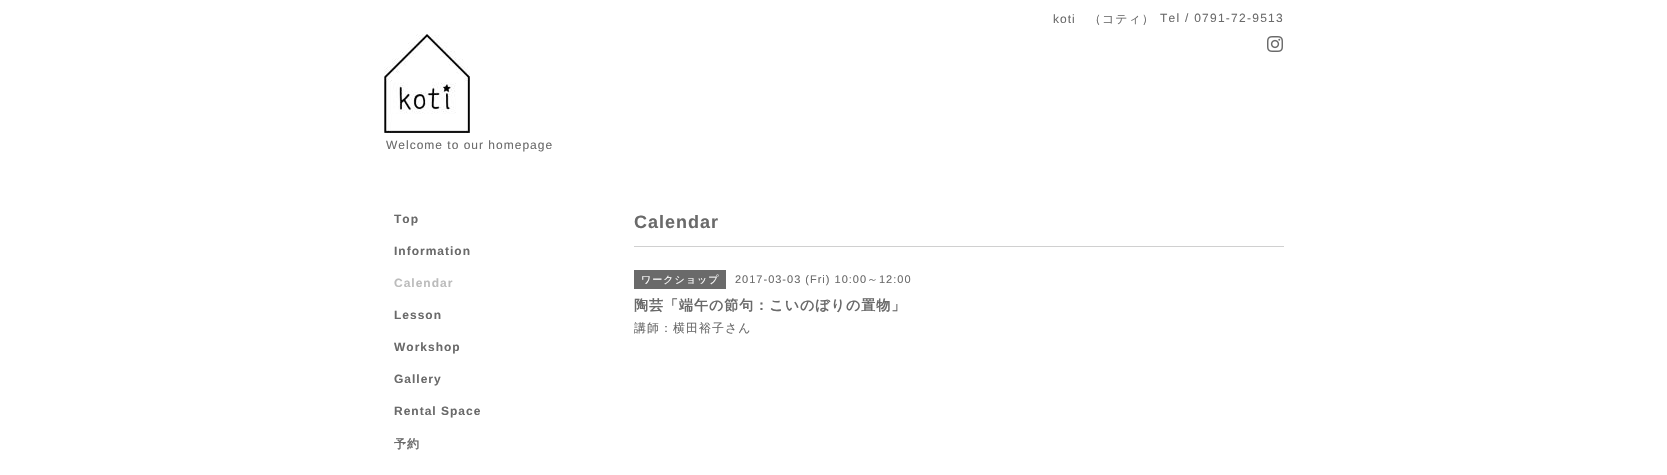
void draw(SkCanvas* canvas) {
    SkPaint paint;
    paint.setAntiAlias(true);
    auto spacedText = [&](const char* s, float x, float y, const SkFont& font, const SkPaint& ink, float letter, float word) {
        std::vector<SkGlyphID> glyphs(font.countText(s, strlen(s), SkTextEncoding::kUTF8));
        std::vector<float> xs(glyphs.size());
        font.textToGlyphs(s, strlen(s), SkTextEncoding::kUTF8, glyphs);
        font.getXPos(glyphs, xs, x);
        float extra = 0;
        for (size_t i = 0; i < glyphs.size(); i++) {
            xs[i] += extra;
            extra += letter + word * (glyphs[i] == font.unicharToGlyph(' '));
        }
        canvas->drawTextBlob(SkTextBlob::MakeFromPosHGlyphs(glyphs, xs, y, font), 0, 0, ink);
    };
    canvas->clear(0xFFFFFFFF);
    SkFont font1(fontMgr->matchFamilyStyle("Liberation Sans", SkFontStyle::Normal()), 12);
    font1.setSubpixel(true);
    paint.setColor(0xFF6A6A6A);
    spacedText("koti", 1053, 23, font1, paint, 1, 0);
    SkFont font2(fontMgr->matchFamilyStyle("WenQuanYi Zen Hei", SkFontStyle(500, SkFontStyle::kNormal_Width, SkFontStyle::kUpright_Slant)), 12);
    font2.setSubpixel(true);
    spacedText("（コティ）", 1089, 23, font2, paint, 1, 0);
    spacedText("Tel / 0791-72-9513", 1160, 22, font1, paint, 1.25f, 0);
    canvas->drawImageRect(SkImages::DeferredFromEncodedData(SkData::MakeFromFileName("img1.png")), SkRect::MakeXYWH(1267, 36, 16, 16), SkSamplingOptions());
    canvas->drawImageRect(SkImages::DeferredFromEncodedData(SkData::MakeFromFileName("img2.png")), SkRect::MakeXYWH(384, 34, 86, 99), SkSamplingOptions());
    spacedText("Welcome to our homepage", 386, 149, font1, paint, 1, 0);
    SkFont font3(fontMgr->matchFamilyStyle("Liberation Sans", SkFontStyle::Bold()), 12);
    font3.setSubpixel(true);
    spacedText("Top", 394, 223, font3, paint, 1, 0);
    spacedText("Information", 394, 255, font3, paint, 1, 0);
    paint.setColor(0xFFBCBCBC);
    spacedText("Calendar", 394, 287, font3, paint, 1, 0);
    paint.setColor(0xFF6A6A6A);
    spacedText("Lesson", 394, 319, font3, paint, 1, 0);
    spacedText("Workshop", 394, 351, font3, paint, 1, 0);
    spacedText("Gallery", 394, 383, font3, paint, 1, 0);
    spacedText("Rental Space", 394, 415, font3, paint, 1, 0);
    SkFont font4(fontMgr->matchFamilyStyle("WenQuanYi Zen Hei", SkFontStyle::Bold()), 12);
    font4.setSubpixel(true);
    spacedText("予約", 394, 448, font4, paint, 1, 0);
    SkFont font5(fontMgr->matchFamilyStyle("Liberation Sans", SkFontStyle::Bold()), 18);
    font5.setSubpixel(true);
    spacedText("Calendar", 634, 228, font5, paint, 1, 0);
    paint.setColor(0xFFD0D0D0);
    canvas->drawRect(SkRect::MakeXYWH(634, 246, 650, 1), paint);
    paint.setColor(0xFF6A6A6A);
    canvas->drawRect(SkRect::MakeXYWH(634, 270, 92, 19), paint);
    SkFont font6(fontMgr->matchFamilyStyle("WenQuanYi Zen Hei", SkFontStyle(500, SkFontStyle::kNormal_Width, SkFontStyle::kUpright_Slant)), 10);
    font6.setSubpixel(true);
    paint.setColor(0xFFFFFFFF);
    spacedText("ワークショップ", 641, 283, font6, paint, 1, 0);
    SkFont font7(fontMgr->matchFamilyStyle("Liberation Sans", SkFontStyle::Normal()), 11);
    font7.setSubpixel(true);
    paint.setColor(0xFF6A6A6A);
    spacedText("2017-03-03 (Fri) 10:00", 735, 283, font7, paint, 1, 0);
    SkFont font8(fontMgr->matchFamilyStyle("WenQuanYi Zen Hei", SkFontStyle(500, SkFontStyle::kNormal_Width, SkFontStyle::kUpright_Slant)), 11);
    font8.setSubpixel(true);
    spacedText("～", 867, 283, font8, paint, 1, 0);
    spacedText("12:00", 879, 283, font7, paint, 1, 0);
    SkFont font9(fontMgr->matchFamilyStyle("WenQuanYi Zen Hei", SkFontStyle::Bold()), 14);
    font9.setSubpixel(true);
    spacedText("陶芸「端午の節句：こいのぼりの置物」", 634, 310, font9, paint, 1, 0);
    spacedText("講師：横田裕子さん", 634, 332, font2, paint, 1, 0);
}
